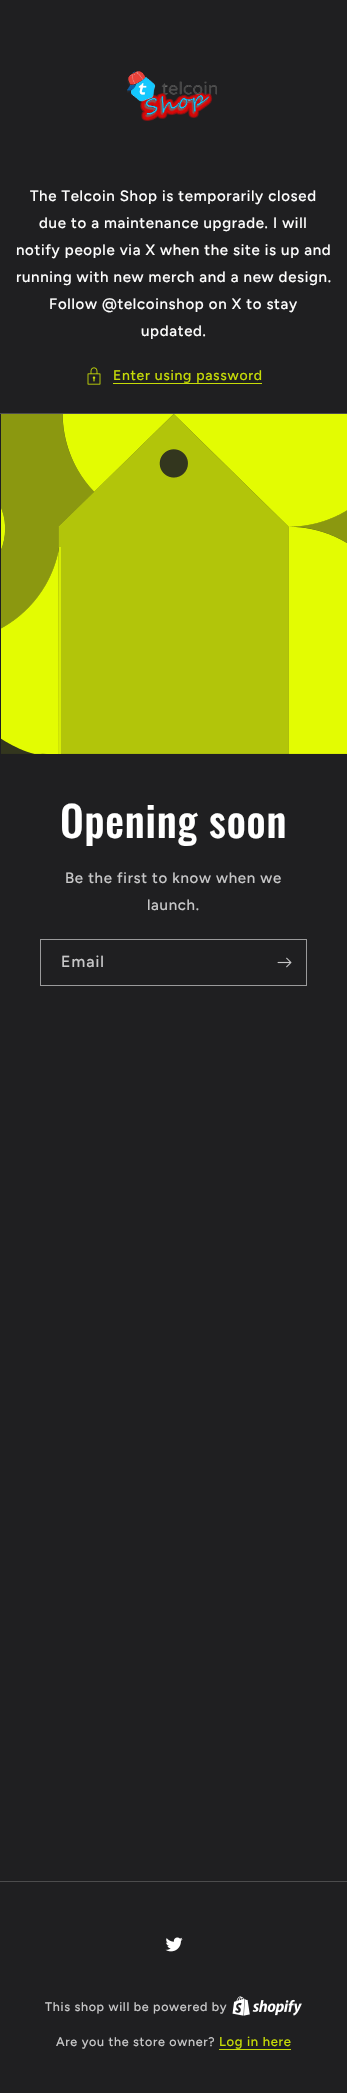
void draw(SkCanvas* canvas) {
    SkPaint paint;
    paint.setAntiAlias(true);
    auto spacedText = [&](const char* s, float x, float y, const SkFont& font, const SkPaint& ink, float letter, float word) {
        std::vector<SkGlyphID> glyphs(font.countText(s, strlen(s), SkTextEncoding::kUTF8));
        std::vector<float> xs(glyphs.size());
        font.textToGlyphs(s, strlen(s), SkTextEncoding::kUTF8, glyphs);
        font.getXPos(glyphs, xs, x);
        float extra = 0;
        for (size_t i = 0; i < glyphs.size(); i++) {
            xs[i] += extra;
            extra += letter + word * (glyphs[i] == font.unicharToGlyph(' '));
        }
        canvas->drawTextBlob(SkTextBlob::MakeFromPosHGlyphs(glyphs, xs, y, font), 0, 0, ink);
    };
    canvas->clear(0xFF1F1F21);
    canvas->drawImageRect(SkImages::DeferredFromEncodedData(SkData::MakeFromFileName("img1.png")), SkRect::MakeXYWH(127, 71, 90, 50), SkSamplingOptions());
    SkFont font1(fontMgr->matchFamilyStyle("Figtree", SkFontStyle(500, SkFontStyle::kNormal_Width, SkFontStyle::kUpright_Slant)), 15);
    font1.setSubpixel(true);
    paint.setColor(0xFFFFFFFF);
    spacedText("The Telcoin Shop is temporarily closed", 30, 201, font1, paint, 0.7f, 0);
    spacedText("due to a maintenance upgrade. I will", 39, 228, font1, paint, 0.7f, 0);
    spacedText("notify people via X when the site is up and", 16, 255, font1, paint, 0.7f, 0);
    spacedText("running with new merch and a new design.", 16, 282, font1, paint, 0.7f, 0);
    spacedText("Follow @telcoinshop on X to stay", 49, 309, font1, paint, 0.7f, 0);
    spacedText("updated.", 141, 336, font1, paint, 0.7f, 0);
    canvas->drawImageRect(SkImages::DeferredFromEncodedData(SkData::MakeFromFileName("img2.png")), SkRect::MakeXYWH(87, 367, 14, 18), SkSamplingOptions());
    SkFont font2(fontMgr->matchFamilyStyle("Figtree", SkFontStyle(500, SkFontStyle::kNormal_Width, SkFontStyle::kUpright_Slant)), 14);
    font2.setSubpixel(true);
    paint.setColor(0xFFC6DB07);
    spacedText("Enter using password", 113, 380, font2, paint, 0.7f, 0);
    canvas->drawRect(SkRect::MakeXYWH(113, 383, 149, 1), paint);
    paint.setColor(0xFF4C4C4D);
    canvas->drawRect(SkRect::MakeXYWH(0, 413, 347, 1), paint);
    canvas->drawImageRect(SkImages::DeferredFromEncodedData(SkData::MakeFromFileName("img3.png")), SkRect::MakeXYWH(1, 414, 346, 340), SkSamplingOptions());
    SkFont font3(fontMgr->matchFamilyStyle("Oswald", SkFontStyle(500, SkFontStyle::kNormal_Width, SkFontStyle::kUpright_Slant)), 42);
    font3.setSubpixel(true);
    paint.setColor(0xFFFFFFFF);
    spacedText("Opening soon", 60, 838, font3, paint, 0.8f, 0);
    paint.setColor(0xFFC7C7C8);
    spacedText("Be the first to know when we", 65, 883, font1, paint, 0.7f, 0);
    spacedText("launch.", 147, 910, font1, paint, 0.7f, 0);
    paint.setStyle(SkPaint::kStroke_Style);
    paint.setStrokeWidth(1);
    paint.setColor(0xFF9A9A9B);
    canvas->drawRect(SkRect::MakeXYWH(40.5f, 939.5f, 266, 46), paint);
    SkFont font4(fontMgr->matchFamilyStyle("Figtree", SkFontStyle(500, SkFontStyle::kNormal_Width, SkFontStyle::kUpright_Slant)), 16);
    font4.setSubpixel(true);
    paint.setStyle(SkPaint::kFill_Style);
    paint.setColor(0xFFC7C7C8);
    spacedText("Email", 61, 967, font4, paint, 1, 0);
    canvas->drawImageRect(SkImages::DeferredFromEncodedData(SkData::MakeFromFileName("img4.png")), SkRect::MakeXYWH(277, 957, 15, 11), SkSamplingOptions());
    paint.setColor(0xFF4C4C4D);
    canvas->drawRect(SkRect::MakeXYWH(0, 1881, 347, 1), paint);
    canvas->drawImageRect(SkImages::DeferredFromEncodedData(SkData::MakeFromFileName("img5.png")), SkRect::MakeXYWH(165, 1937, 18, 15), SkSamplingOptions());
    SkFont font5(fontMgr->matchFamilyStyle("Figtree", SkFontStyle(500, SkFontStyle::kNormal_Width, SkFontStyle::kUpright_Slant)), 12.5f);
    font5.setSubpixel(true);
    paint.setColor(0xFFC7C7C8);
    spacedText("This shop will be powered by", 45, 2011, font5, paint, 0.7f, 0);
    canvas->drawImageRect(SkImages::DeferredFromEncodedData(SkData::MakeFromFileName("img6.png")), SkRect::MakeXYWH(232, 1996, 70, 20), SkSamplingOptions());
    spacedText("Are you the store owner?", 56, 2046, font5, paint, 0.7f, 0);
    SkFont font6(fontMgr->matchFamilyStyle("Figtree", SkFontStyle(500, SkFontStyle::kNormal_Width, SkFontStyle::kUpright_Slant)), 13);
    font6.setSubpixel(true);
    paint.setColor(0xFFC6DB07);
    spacedText("Log in here", 219, 2046, font6, paint, 0.7f, 0);
    canvas->drawRect(SkRect::MakeXYWH(219, 2049, 72, 1), paint);
}
